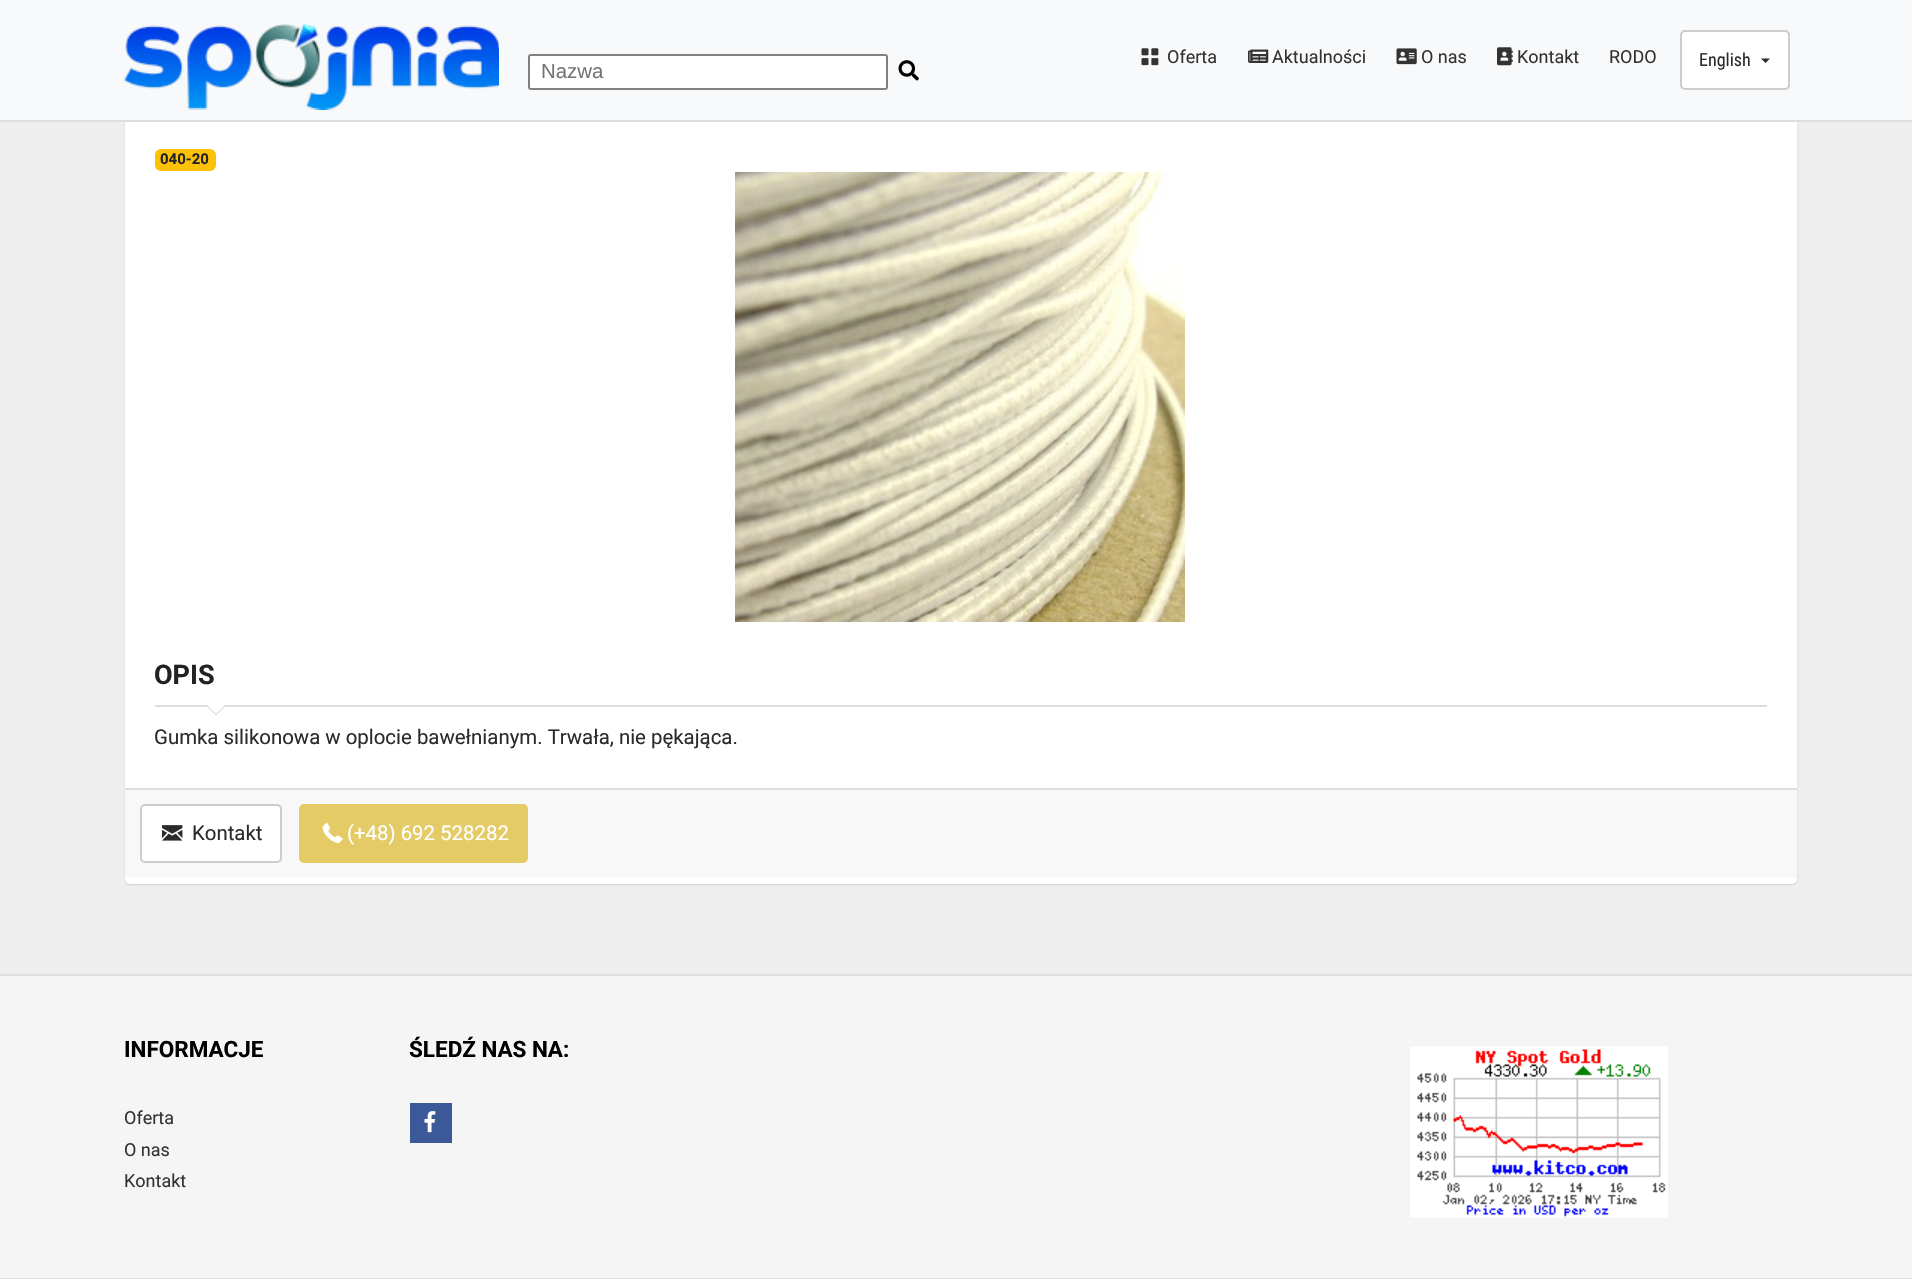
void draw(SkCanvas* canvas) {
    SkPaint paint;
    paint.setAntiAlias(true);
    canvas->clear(0xFFEEEEEE);
    paint.setColor(0x80B4B4B4);
    paint.setMaskFilter(SkMaskFilter::MakeBlur(kNormal_SkBlurStyle, 1));
    canvas->drawRoundRect(SkRect::MakeXYWH(125, 48, 1672, 837), 5, 5, paint);
    paint.setMaskFilter(nullptr);
    paint.setColor(0xFFFFFFFF);
    canvas->drawRoundRect(SkRect::MakeXYWH(125, 47, 1672, 837), 5, 5, paint);
    paint.setColor(0xFFF8F9FA);
    canvas->drawRect(SkRect::MakeXYWH(0, 0, 1912, 120), paint);
    paint.setColor(0xFFDDDDDD);
    canvas->drawRect(SkRect::MakeXYWH(0, 120, 1912, 2), paint);
    canvas->drawImageRect(SkImages::DeferredFromEncodedData(SkData::MakeFromFileName("img1.png")), SkRect::MakeXYWH(124, 24, 375, 86), SkSamplingOptions());
    paint.setColor(0xFFFFFFFF);
    canvas->drawRoundRect(SkRect::MakeXYWH(529, 55, 358, 34), 2, 2, paint);
    paint.setStyle(SkPaint::kStroke_Style);
    paint.setStrokeWidth(2);
    paint.setColor(0xFF808080);
    canvas->drawRoundRect(SkRect::MakeXYWH(529, 55, 358, 34), 2, 2, paint);
    SkFont font1(fontMgr->matchFamilyStyle("Liberation Sans", SkFontStyle::Normal()), 20.4f);
    font1.setSubpixel(true);
    paint.setStyle(SkPaint::kFill_Style);
    paint.setColor(0xFF757575);
    canvas->drawString("Nazwa", 541, 78, font1, paint);
    canvas->drawImageRect(SkImages::DeferredFromEncodedData(SkData::MakeFromFileName("img2.png")), SkRect::MakeXYWH(898, 60, 21, 21), SkSamplingOptions());
    canvas->drawImageRect(SkImages::DeferredFromEncodedData(SkData::MakeFromFileName("img3.png")), SkRect::MakeXYWH(1141, 48, 18, 18), SkSamplingOptions());
    SkFont font2(fontMgr->matchFamilyStyle("Roboto", SkFontStyle::Normal()), 18);
    font2.setSubpixel(true);
    paint.setColor(0xFF333333);
    canvas->drawString("Oferta", 1167, 63, font2, paint);
    canvas->drawImageRect(SkImages::DeferredFromEncodedData(SkData::MakeFromFileName("img4.png")), SkRect::MakeXYWH(1248, 49, 21, 14), SkSamplingOptions());
    canvas->drawString("Aktualności", 1272, 63, font2, paint);
    canvas->drawImageRect(SkImages::DeferredFromEncodedData(SkData::MakeFromFileName("img5.png")), SkRect::MakeXYWH(1396, 48, 21, 17), SkSamplingOptions());
    canvas->drawString("O nas", 1421, 63, font2, paint);
    canvas->drawImageRect(SkImages::DeferredFromEncodedData(SkData::MakeFromFileName("img6.png")), SkRect::MakeXYWH(1497, 47, 16, 19), SkSamplingOptions());
    canvas->drawString("Kontakt", 1517, 63, font2, paint);
    canvas->drawString("RODO", 1609, 63, font2, paint);
    paint.setColor(0xFFFFFFFF);
    canvas->drawRoundRect(SkRect::MakeXYWH(1681, 31, 108, 58), 4, 4, paint);
    paint.setStyle(SkPaint::kStroke_Style);
    paint.setColor(0xFFCCCCCC);
    canvas->drawRoundRect(SkRect::MakeXYWH(1681, 31, 108, 58), 4, 4, paint);
    SkFont font3(fontMgr->matchFamilyStyle("Roboto Condensed", SkFontStyle::Normal()), 18);
    font3.setSubpixel(true);
    paint.setStyle(SkPaint::kFill_Style);
    paint.setColor(0xFF292B2C);
    canvas->drawString("English", 1699, 66, font3, paint);
    canvas->drawPath(SkPathBuilder().moveTo(1761, 58.5f).lineTo(1770, 58.5f).lineTo(1765.5f, 63).close().detach(), paint);
    paint.setColor(0xFFFFC107);
    canvas->drawRoundRect(SkRect::MakeXYWH(155, 149, 61, 22), 6, 6, paint);
    SkFont font4(fontMgr->matchFamilyStyle("Roboto", SkFontStyle::Bold()), 15);
    font4.setSubpixel(true);
    paint.setColor(0xFF212529);
    canvas->drawString("040-20", 160, 164, font4, paint);
    canvas->drawImageRect(SkImages::DeferredFromEncodedData(SkData::MakeFromFileName("img7.png")), SkRect::MakeXYWH(735, 172, 450, 450), SkSamplingOptions());
    paint.setColor(0xFFDDDDDD);
    canvas->drawRect(SkRect::MakeXYWH(155, 705, 1612, 2), paint);
    SkFont font5(fontMgr->matchFamilyStyle("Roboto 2", SkFontStyle::Bold()), 27);
    font5.setSubpixel(true);
    paint.setColor(0xFF222222);
    canvas->drawString("OPIS", 154, 684, font5, paint);
    paint.setColor(0xFFDDDDDD);
    canvas->drawPath(SkPathBuilder().moveTo(205.5f, 705).lineTo(226.5f, 705).lineTo(216, 715.5f).close().detach(), paint);
    paint.setColor(0xFFFFFFFF);
    canvas->drawPath(SkPathBuilder().moveTo(207, 705).lineTo(225, 705).lineTo(216, 714).close().detach(), paint);
    SkFont font6(fontMgr->matchFamilyStyle("Roboto", SkFontStyle::Normal()), 20.4f);
    font6.setSubpixel(true);
    paint.setColor(0xFF292B2C);
    canvas->drawString("Gumka silikonowa w oplocie bawełnianym. Trwała, nie pękająca.", 154, 744, font6, paint);
    paint.setColor(0xFFF8F8F8);
    canvas->drawRect(SkRect::MakeXYWH(125, 790, 1672, 88), paint);
    paint.setColor(0xFFDDDDDD);
    canvas->drawRect(SkRect::MakeXYWH(125, 788, 1672, 2), paint);
    paint.setColor(0xFFFFFFFF);
    canvas->drawRoundRect(SkRect::MakeXYWH(141, 805, 140, 57), 4, 4, paint);
    paint.setStyle(SkPaint::kStroke_Style);
    paint.setColor(0xFFCCCCCC);
    canvas->drawRoundRect(SkRect::MakeXYWH(141, 805, 140, 57), 4, 4, paint);
    canvas->drawImageRect(SkImages::DeferredFromEncodedData(SkData::MakeFromFileName("img8.png")), SkRect::MakeXYWH(162, 825, 21, 16), SkSamplingOptions());
    paint.setStyle(SkPaint::kFill_Style);
    paint.setColor(0xFF292B2C);
    canvas->drawString("Kontakt", 192, 840, font6, paint);
    paint.setColor(0xFFE4CB65);
    canvas->drawRoundRect(SkRect::MakeXYWH(300, 805, 227, 57), 4, 4, paint);
    paint.setStyle(SkPaint::kStroke_Style);
    canvas->drawRoundRect(SkRect::MakeXYWH(300, 805, 227, 57), 4, 4, paint);
    canvas->drawImageRect(SkImages::DeferredFromEncodedData(SkData::MakeFromFileName("img9.png")), SkRect::MakeXYWH(322, 822, 21, 21), SkSamplingOptions());
    paint.setStyle(SkPaint::kFill_Style);
    paint.setColor(0xFFFFFFFF);
    canvas->drawString("(+48) 692 528282", 347, 840, font6, paint);
    paint.setColor(0xFFF5F5F5);
    canvas->drawRect(SkRect::MakeXYWH(0, 976, 1912, 302), paint);
    paint.setColor(0xFFDDDDDD);
    canvas->drawRect(SkRect::MakeXYWH(0, 974, 1912, 2), paint);
    canvas->drawRect(SkRect::MakeXYWH(0, 1278, 1912, 1), paint);
    SkFont font7(fontMgr->matchFamilyStyle("Roboto 2", SkFontStyle::Bold()), 22.5f);
    font7.setSubpixel(true);
    paint.setColor(0xFF000000);
    canvas->drawString("INFORMACJE", 124, 1057, font7, paint);
    paint.setColor(0xFF333333);
    canvas->drawString("Oferta", 124, 1124, font2, paint);
    canvas->drawString("O nas", 124, 1156, font2, paint);
    canvas->drawString("Kontakt", 124, 1187, font2, paint);
    paint.setColor(0xFF000000);
    canvas->drawString("ŚLEDŹ NAS NA:", 409, 1057, font7, paint);
    paint.setColor(0xFF3B5998);
    canvas->drawRect(SkRect::MakeXYWH(410, 1103, 42, 40), paint);
    canvas->drawImageRect(SkImages::DeferredFromEncodedData(SkData::MakeFromFileName("img10.png")), SkRect::MakeXYWH(424, 1111, 12, 22), SkSamplingOptions());
    canvas->drawImageRect(SkImages::DeferredFromEncodedData(SkData::MakeFromFileName("img11.png")), SkRect::MakeXYWH(1410, 1046, 258, 172), SkSamplingOptions());
}
